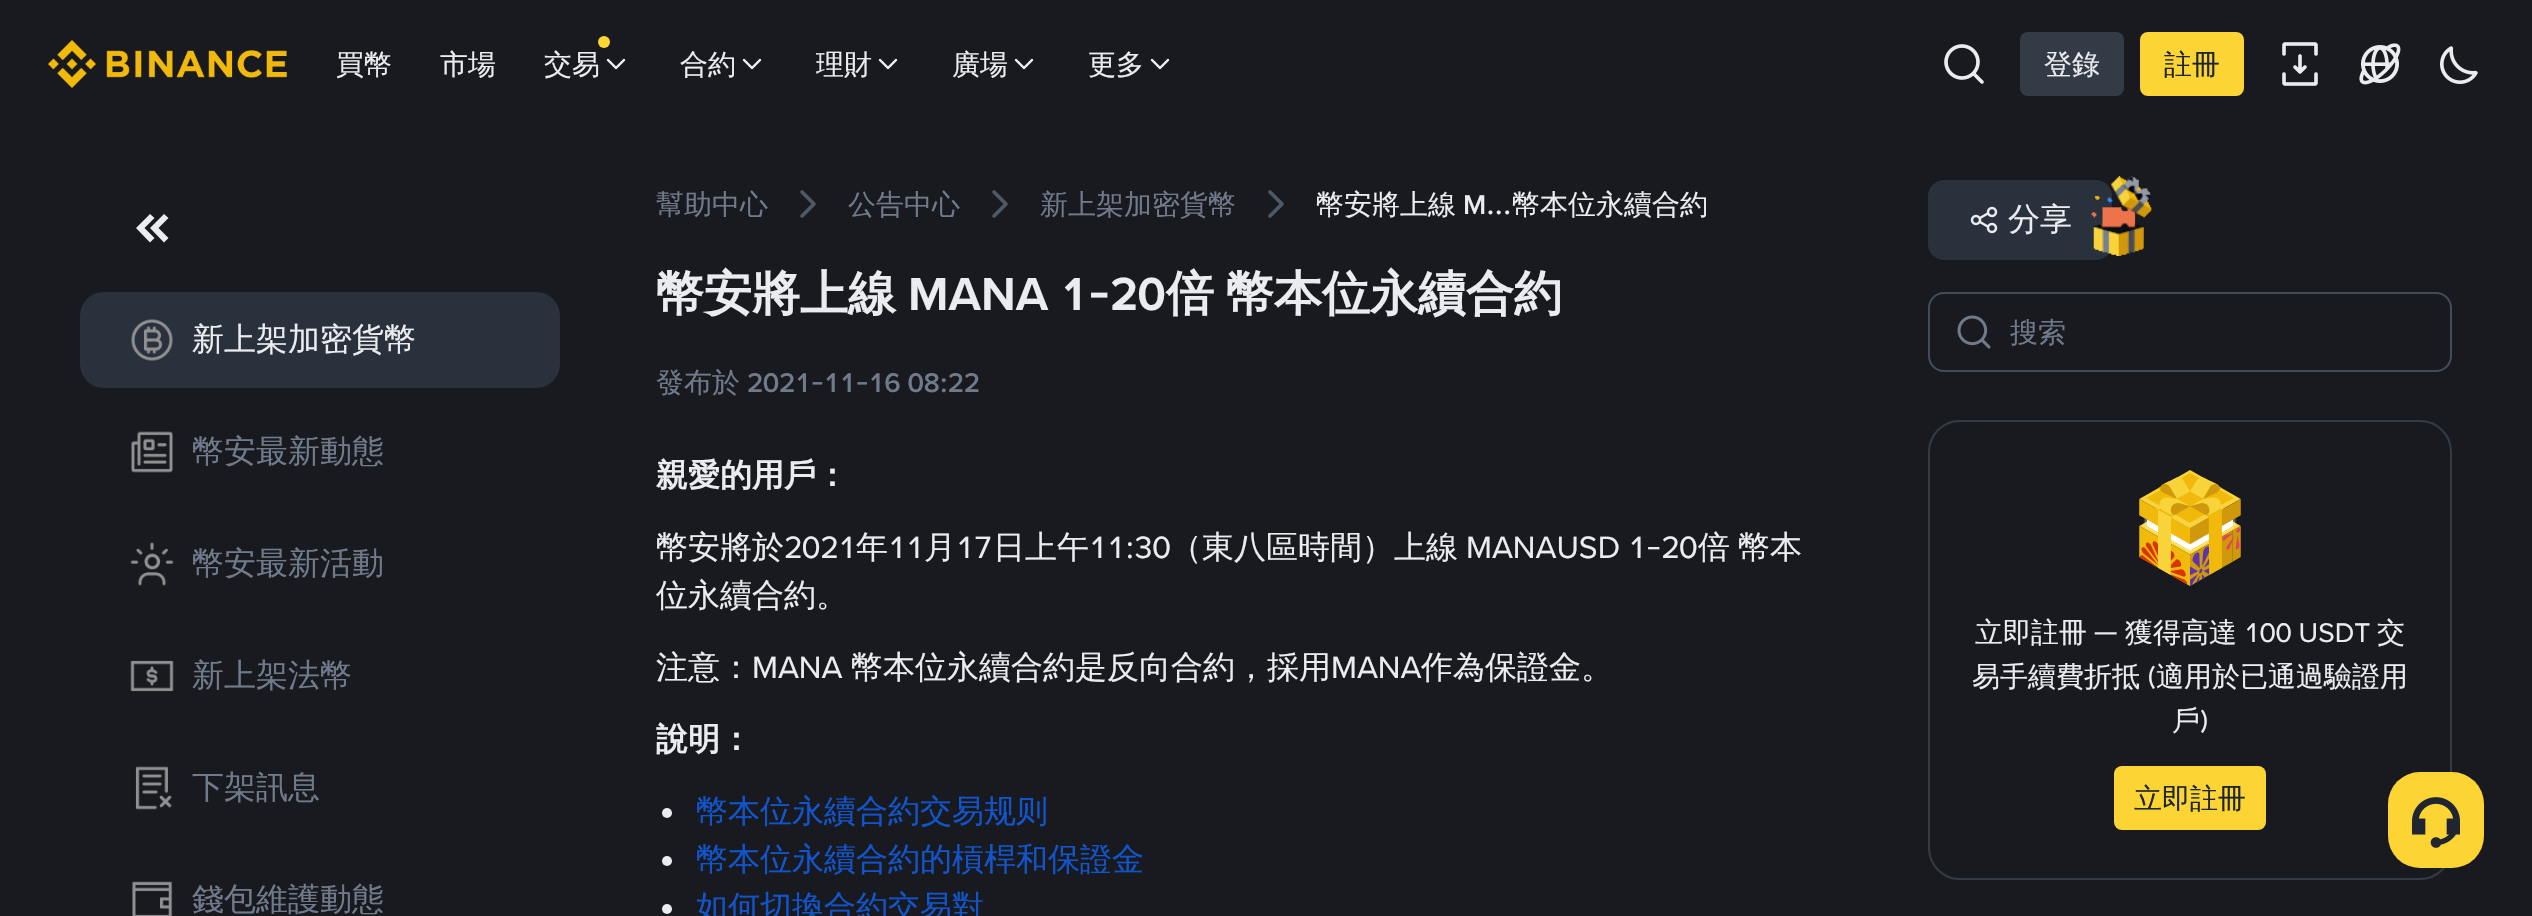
void draw(SkCanvas* canvas) {
    SkPaint paint;
    paint.setAntiAlias(true);
    canvas->clear(0xFF181A20);
    canvas->drawImageRect(SkImages::DeferredFromEncodedData(SkData::MakeFromFileName("img1.png")), SkRect::MakeXYWH(48, 40, 239, 48), SkSamplingOptions());
    SkFont font1(fontMgr->matchFamilyStyle("WenQuanYi Zen Hei", SkFontStyle(500, SkFontStyle::kNormal_Width, SkFontStyle::kUpright_Slant)), 28);
    font1.setSubpixel(true);
    paint.setColor(0xFFEAECEF);
    canvas->drawString("買幣", 336, 74, font1, paint);
    canvas->drawString("市場", 440, 74, font1, paint);
    paint.setColor(0xFFFCD535);
    canvas->drawCircle(604, 42, 6, paint);
    paint.setColor(0xFFEAECEF);
    canvas->drawString("交易", 544, 74, font1, paint);
    canvas->drawImageRect(SkImages::DeferredFromEncodedData(SkData::MakeFromFileName("img2.png")), SkRect::MakeXYWH(606, 58, 20, 12), SkSamplingOptions());
    canvas->drawString("合約", 680, 74, font1, paint);
    canvas->drawImageRect(SkImages::DeferredFromEncodedData(SkData::MakeFromFileName("img2.png")), SkRect::MakeXYWH(742, 58, 20, 12), SkSamplingOptions());
    canvas->drawString("理財", 816, 74, font1, paint);
    canvas->drawImageRect(SkImages::DeferredFromEncodedData(SkData::MakeFromFileName("img2.png")), SkRect::MakeXYWH(878, 58, 20, 12), SkSamplingOptions());
    canvas->drawString("廣場", 952, 74, font1, paint);
    canvas->drawImageRect(SkImages::DeferredFromEncodedData(SkData::MakeFromFileName("img2.png")), SkRect::MakeXYWH(1014, 58, 20, 12), SkSamplingOptions());
    canvas->drawString("更多", 1088, 74, font1, paint);
    canvas->drawImageRect(SkImages::DeferredFromEncodedData(SkData::MakeFromFileName("img2.png")), SkRect::MakeXYWH(1150, 58, 20, 12), SkSamplingOptions());
    canvas->drawImageRect(SkImages::DeferredFromEncodedData(SkData::MakeFromFileName("img3.png")), SkRect::MakeXYWH(1944, 44, 40, 40), SkSamplingOptions());
    paint.setColor(0xFF333B47);
    canvas->drawRoundRect(SkRect::MakeXYWH(2020, 32, 104, 64), 8, 8, paint);
    paint.setColor(0xFFEAECEF);
    canvas->drawString("登錄", 2044, 74, font1, paint);
    paint.setColor(0xFFFCD535);
    canvas->drawRoundRect(SkRect::MakeXYWH(2140, 32, 104, 64), 8, 8, paint);
    paint.setColor(0xFF202630);
    canvas->drawString("註冊", 2164, 74, font1, paint);
    canvas->drawImageRect(SkImages::DeferredFromEncodedData(SkData::MakeFromFileName("img4.png")), SkRect::MakeXYWH(2282, 42, 36, 44), SkSamplingOptions());
    canvas->drawImageRect(SkImages::DeferredFromEncodedData(SkData::MakeFromFileName("img5.png")), SkRect::MakeXYWH(2359, 43, 42, 42), SkSamplingOptions());
    canvas->drawImageRect(SkImages::DeferredFromEncodedData(SkData::MakeFromFileName("img6.png")), SkRect::MakeXYWH(2440, 46, 38, 38), SkSamplingOptions());
    paint.setColor(0xFFEAECEF);
    canvas->drawPath(SkPathBuilder(SkPathFillType::kEvenOdd).moveTo(150, 242.5f).lineTo(136, 228).lineTo(150, 214).lineTo(154.5f, 218).lineTo(144.5f, 228).lineTo(154.5f, 238).close().moveTo(164, 242.5f).lineTo(150, 228).lineTo(164, 214).lineTo(168.5f, 218).lineTo(158.5f, 228).lineTo(168.5f, 238).close().detach(), paint);
    paint.setColor(0xFF29313D);
    canvas->drawRoundRect(SkRect::MakeXYWH(80, 292, 480, 96), 24, 24, paint);
    canvas->drawImageRect(SkImages::DeferredFromEncodedData(SkData::MakeFromFileName("img7.png")), SkRect::MakeXYWH(131, 319, 42, 42), SkSamplingOptions());
    SkFont font2(fontMgr->matchFamilyStyle("WenQuanYi Zen Hei", SkFontStyle(500, SkFontStyle::kNormal_Width, SkFontStyle::kUpright_Slant)), 32);
    font2.setSubpixel(true);
    paint.setColor(0xFFEAECEF);
    canvas->drawString("新上架加密貨幣", 192, 350, font2, paint);
    canvas->drawImageRect(SkImages::DeferredFromEncodedData(SkData::MakeFromFileName("img8.png")), SkRect::MakeXYWH(131, 431, 42, 42), SkSamplingOptions());
    paint.setColor(0xFF707A8A);
    canvas->drawString("幣安最新動態", 192, 462, font2, paint);
    canvas->drawImageRect(SkImages::DeferredFromEncodedData(SkData::MakeFromFileName("img9.png")), SkRect::MakeXYWH(130, 542, 44, 44), SkSamplingOptions());
    canvas->drawString("幣安最新活動", 192, 574, font2, paint);
    canvas->drawImageRect(SkImages::DeferredFromEncodedData(SkData::MakeFromFileName("img10.png")), SkRect::MakeXYWH(130, 660, 44, 32), SkSamplingOptions());
    canvas->drawString("新上架法幣", 192, 686, font2, paint);
    canvas->drawImageRect(SkImages::DeferredFromEncodedData(SkData::MakeFromFileName("img11.png")), SkRect::MakeXYWH(135, 766, 37, 44), SkSamplingOptions());
    canvas->drawString("下架訊息", 192, 798, font2, paint);
    canvas->drawImageRect(SkImages::DeferredFromEncodedData(SkData::MakeFromFileName("img12.png")), SkRect::MakeXYWH(132, 881, 41, 35), SkSamplingOptions());
    canvas->drawString("錢包維護動態", 192, 910, font2, paint);
    canvas->drawString("幫助中心", 656, 214, font1, paint);
    canvas->drawImageRect(SkImages::DeferredFromEncodedData(SkData::MakeFromFileName("img13.png")), SkRect::MakeXYWH(800, 190, 16, 28), SkSamplingOptions());
    canvas->drawString("公告中心", 848, 214, font1, paint);
    canvas->drawImageRect(SkImages::DeferredFromEncodedData(SkData::MakeFromFileName("img13.png")), SkRect::MakeXYWH(992, 190, 16, 28), SkSamplingOptions());
    canvas->drawString("新上架加密貨幣", 1040, 214, font1, paint);
    canvas->drawImageRect(SkImages::DeferredFromEncodedData(SkData::MakeFromFileName("img13.png")), SkRect::MakeXYWH(1268, 190, 16, 28), SkSamplingOptions());
    paint.setColor(0xFFEAECEF);
    canvas->drawString("幣安將上線", 1316, 214, font1, paint);
    SkFont font3(fontMgr->matchFamilyStyle("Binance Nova", SkFontStyle(500, SkFontStyle::kNormal_Width, SkFontStyle::kUpright_Slant)), 28);
    font3.setSubpixel(true);
    canvas->drawString("M...", 1463, 214, font3, paint);
    canvas->drawString("幣本位永續合約", 1512, 214, font1, paint);
    SkFont font4(fontMgr->matchFamilyStyle("WenQuanYi Zen Hei", SkFontStyle::Bold()), 48);
    font4.setSubpixel(true);
    canvas->drawString("幣安將上線", 656, 310, font4, paint);
    SkFont font5(fontMgr->matchFamilyStyle("Binance Nova", SkFontStyle(600, SkFontStyle::kNormal_Width, SkFontStyle::kUpright_Slant)), 48);
    font5.setSubpixel(true);
    canvas->drawString("MANA 1-20", 908, 310, font5, paint);
    canvas->drawString("倍", 1166, 310, font4, paint);
    canvas->drawString("幣本位永續合約", 1226, 310, font4, paint);
    paint.setColor(0xFF707A8A);
    canvas->drawString("發布於", 656, 392, font1, paint);
    canvas->drawString("2021-11-16 08:22", 747, 392, font3, paint);
    SkFont font6(fontMgr->matchFamilyStyle("WenQuanYi Zen Hei", SkFontStyle::Bold()), 32);
    font6.setSubpixel(true);
    paint.setColor(0xFFEAECEF);
    canvas->drawString("親愛的用戶：", 656, 486, font6, paint);
    canvas->drawString("幣安將於", 656, 558, font2, paint);
    SkFont font7(fontMgr->matchFamilyStyle("Binance Nova", SkFontStyle::Normal()), 32);
    font7.setSubpixel(true);
    canvas->drawString("2021", 784, 558, font7, paint);
    canvas->drawString("年", 856, 558, font2, paint);
    canvas->drawString("11", 888, 558, font7, paint);
    canvas->drawString("月", 924, 558, font2, paint);
    canvas->drawString("17", 956, 558, font7, paint);
    canvas->drawString("日上午", 993, 558, font2, paint);
    canvas->drawString("11:30", 1089, 558, font7, paint);
    canvas->drawString("（東八區時間）上線", 1170, 558, font2, paint);
    canvas->drawString("MANAUSD 1-20", 1466, 558, font7, paint);
    canvas->drawString("倍", 1698, 558, font2, paint);
    canvas->drawString("幣本", 1738, 558, font2, paint);
    canvas->drawString("位永續合約。", 656, 606, font2, paint);
    canvas->drawString("注意：", 656, 678, font2, paint);
    canvas->drawString("MANA", 752, 678, font7, paint);
    canvas->drawString("幣本位永續合約是反向合約，採用", 851, 678, font2, paint);
    canvas->drawString("MANA", 1331, 678, font7, paint);
    canvas->drawString("作為保證金。", 1421, 678, font2, paint);
    canvas->drawString("說明：", 656, 750, font6, paint);
    canvas->drawCircle(667, 813, 5, paint);
    paint.setColor(0xFF1155CC);
    canvas->drawString("幣本位永續合約交易规则", 696, 822, font2, paint);
    paint.setColor(0xFFEAECEF);
    canvas->drawCircle(667, 861, 5, paint);
    paint.setColor(0xFF1155CC);
    canvas->drawString("幣本位永續合約的槓桿和保證金", 696, 870, font2, paint);
    paint.setColor(0xFFEAECEF);
    canvas->drawCircle(667, 909, 5, paint);
    paint.setColor(0xFF1155CC);
    canvas->drawString("如何切換合約交易對", 696, 918, font2, paint);
    paint.setColor(0xFF29313D);
    canvas->drawRoundRect(SkRect::MakeXYWH(1928, 180, 184, 80), 16, 16, paint);
    canvas->drawImageRect(SkImages::DeferredFromEncodedData(SkData::MakeFromFileName("img14.png")), SkRect::MakeXYWH(1970, 206, 28, 28), SkSamplingOptions());
    paint.setColor(0xFFEAECEF);
    canvas->drawString("分享", 2008, 230, font2, paint);
    canvas->drawImageRect(SkImages::DeferredFromEncodedData(SkData::MakeFromFileName("img15.png")), SkRect::MakeXYWH(2091, 176, 61, 80), SkSamplingOptions());
    paint.setStyle(SkPaint::kStroke_Style);
    paint.setStrokeWidth(2);
    paint.setColor(0xFF434C5A);
    canvas->drawRoundRect(SkRect::MakeXYWH(1929, 293, 522, 78), 15, 15, paint);
    canvas->drawImageRect(SkImages::DeferredFromEncodedData(SkData::MakeFromFileName("img16.png")), SkRect::MakeXYWH(1957, 315, 34, 34), SkSamplingOptions());
    paint.setStyle(SkPaint::kFill_Style);
    paint.setColor(0xFF707A8A);
    canvas->drawString("搜索", 2010, 342, font1, paint);
    paint.setStyle(SkPaint::kStroke_Style);
    paint.setColor(0xFF333B47);
    canvas->drawRoundRect(SkRect::MakeXYWH(1929, 421, 522, 458), 31, 31, paint);
    canvas->drawImageRect(SkImages::DeferredFromEncodedData(SkData::MakeFromFileName("img17.png")), SkRect::MakeXYWH(2139, 470, 102, 116), SkSamplingOptions());
    paint.setStyle(SkPaint::kFill_Style);
    paint.setColor(0xFFEAECEF);
    canvas->drawString("立即註冊", 1975, 642, font1, paint);
    SkFont font8(fontMgr->matchFamilyStyle("Binance Nova", SkFontStyle::Normal()), 28);
    font8.setSubpixel(true);
    canvas->drawString("—", 2094, 642, font8, paint);
    canvas->drawString("獲得高達", 2125, 642, font1, paint);
    canvas->drawString("100 USDT", 2244, 642, font8, paint);
    canvas->drawString("交", 2377, 642, font1, paint);
    canvas->drawString("易手續費折抵", 1972, 686, font1, paint);
    canvas->drawString("(", 2147, 686, font8, paint);
    canvas->drawString("適用於已通過驗證用", 2156, 686, font1, paint);
    canvas->drawString("戶", 2172, 730, font1, paint);
    canvas->drawString(")", 2200, 730, font8, paint);
    paint.setColor(0xFFFCD535);
    canvas->drawRoundRect(SkRect::MakeXYWH(2114, 766, 152, 64), 8, 8, paint);
    paint.setColor(0xFF202630);
    canvas->drawString("立即註冊", 2134, 808, font1, paint);
    paint.setColor(0xFFFCD535);
    canvas->drawRoundRect(SkRect::MakeXYWH(2388, 772, 96, 96), 32, 32, paint);
    canvas->drawImageRect(SkImages::DeferredFromEncodedData(SkData::MakeFromFileName("img18.png")), SkRect::MakeXYWH(2412, 797, 48, 51), SkSamplingOptions());
}
